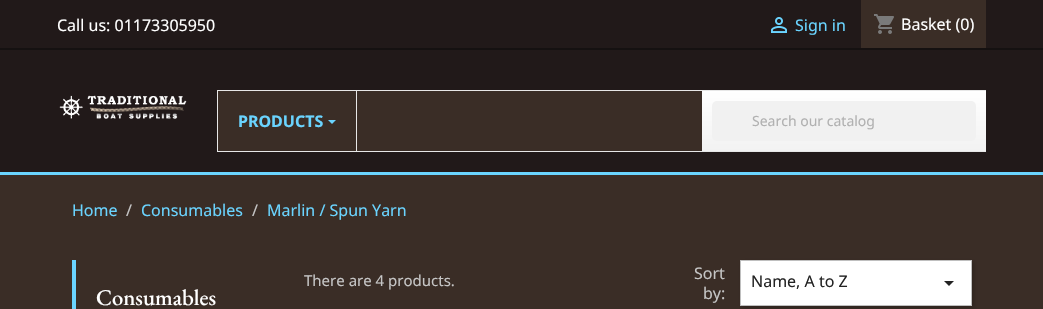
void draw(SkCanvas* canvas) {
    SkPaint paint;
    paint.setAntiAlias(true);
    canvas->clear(0xFF211919);
    paint.setColor(0xFF6AD4FF);
    canvas->drawRect(SkRect::MakeXYWH(0, 172, 1043, 3), paint);
    paint.setColor(0xFF151111);
    canvas->drawRect(SkRect::MakeXYWH(0, 48, 1043, 2), paint);
    SkFont font1(fontMgr->matchFamilyStyle("Noto Sans", SkFontStyle::Normal()), 16);
    font1.setSubpixel(true);
    paint.setColor(0xFFFFFFFF);
    canvas->drawString("Call us: 01173305950", 57, 31, font1, paint);
    canvas->drawImageRect(SkImages::DeferredFromEncodedData(SkData::MakeFromFileName("img1.png")), SkRect::MakeXYWH(771, 17, 16, 16), SkSamplingOptions());
    paint.setColor(0xFF6AD4FF);
    canvas->drawString("Sign in", 795, 31, font1, paint);
    paint.setColor(0xFF3A2D26);
    canvas->drawRect(SkRect::MakeXYWH(861, 0, 125, 48), paint);
    canvas->drawImageRect(SkImages::DeferredFromEncodedData(SkData::MakeFromFileName("img2.png")), SkRect::MakeXYWH(874, 14, 20, 20), SkSamplingOptions());
    paint.setColor(0xFFFFFFFF);
    canvas->drawString("Basket (0)", 901, 30, font1, paint);
    canvas->drawImageRect(SkImages::DeferredFromEncodedData(SkData::MakeFromFileName("img3.png")), SkRect::MakeXYWH(59, 95, 128, 24), SkSamplingOptions());
    {
        const SkColor colors[] = {0xFFFFFFFF, 0xFFF2F2F2};
        const float stops[] = {0, 1};
        const SkPoint ends[] = {{602, 91}, {602, 151}};
        paint.setShader(SkGradientShader::MakeLinear(ends, colors, stops, 2, SkTileMode::kClamp));
        paint.setAlpha(255);
    }
    canvas->drawRect(SkRect::MakeXYWH(702, 91, 284, 60), paint);
    paint.setShader(nullptr);
    paint.setColor(0xFFE7E7E7);
    canvas->drawRect(SkRect::MakeXYWH(217, 90, 769, 1), paint);
    canvas->drawRect(SkRect::MakeXYWH(217, 151, 769, 1), paint);
    paint.setColor(0xFF3A2D26);
    canvas->drawRect(SkRect::MakeXYWH(218, 91, 484, 60), paint);
    paint.setColor(0xFFE7E7E7);
    canvas->drawRect(SkRect::MakeXYWH(356, 91, 1, 60), paint);
    canvas->drawRect(SkRect::MakeXYWH(217, 91, 1, 60), paint);
    SkFont font2(fontMgr->matchFamilyStyle("Noto Sans", SkFontStyle::Bold()), 16);
    font2.setSubpixel(true);
    paint.setColor(0xFF6AD4FF);
    canvas->drawString("PRODUCTS", 238, 127, font2, paint);
    canvas->drawPath(SkPathBuilder().moveTo(328, 120).lineTo(336, 120).lineTo(332, 124).close().detach(), paint);
    paint.setColor(0xFFF1F1F1);
    canvas->drawRoundRect(SkRect::MakeXYWH(712, 101, 264, 40), 5, 5, paint);
    SkFont font3(fontMgr->matchFamilyStyle("Noto Sans", SkFontStyle::Normal()), 14);
    font3.setSubpixel(true);
    paint.setColor(0xFFB1B1B1);
    canvas->drawString("Search our catalog", 752, 126, font3, paint);
    paint.setColor(0xFF3A2D26);
    canvas->drawRect(SkRect::MakeXYWH(0, 175, 1043, 134), paint);
    paint.setColor(0xFF6AD4FF);
    canvas->drawString("Home", 72, 216, font1, paint);
    paint.setColor(0xFFC5C5C5);
    canvas->drawString("/", 126, 216, font1, paint);
    paint.setColor(0xFF6AD4FF);
    canvas->drawString("Consumables", 141, 216, font1, paint);
    paint.setColor(0xFFC5C5C5);
    canvas->drawString("/", 252, 216, font1, paint);
    paint.setColor(0xFF6AD4FF);
    canvas->drawString("Marlin / Spun Yarn", 267, 216, font1, paint);
    canvas->drawRect(SkRect::MakeXYWH(72, 260, 4, 49), paint);
    SkFont font4(fontMgr->matchFamilyStyle("EB Garamond", SkFontStyle(500, SkFontStyle::kNormal_Width, SkFontStyle::kUpright_Slant)), 22.5f);
    font4.setSubpixel(true);
    paint.setColor(0xFFFFFFFF);
    canvas->drawString("Consumables", 96, 305, font4, paint);
    SkFont font5(fontMgr->matchFamilyStyle("Noto Sans", SkFontStyle::Normal()), 15);
    font5.setSubpixel(true);
    paint.setColor(0xFFC5C5C5);
    canvas->drawString("There are 4 products.", 304, 286, font5, paint);
    canvas->drawString("Sort", 694, 279, font1, paint);
    canvas->drawString("by:", 703, 299, font1, paint);
    paint.setColor(0x33000000);
    paint.setMaskFilter(SkMaskFilter::MakeBlur(kNormal_SkBlurStyle, 2));
    canvas->drawRect(SkRect::MakeXYWH(742, 262, 232, 46), paint);
    paint.setMaskFilter(nullptr);
    paint.setColor(0xFFFFFFFF);
    canvas->drawRect(SkRect::MakeXYWH(740.5f, 260.5f, 231, 45), paint);
    paint.setStyle(SkPaint::kStroke_Style);
    paint.setStrokeWidth(1);
    paint.setColor(0xFFBFBFBF);
    canvas->drawRect(SkRect::MakeXYWH(740.5f, 260.5f, 231, 45), paint);
    paint.setStyle(SkPaint::kFill_Style);
    paint.setColor(0xFF232323);
    canvas->drawString("Name, A to Z", 751, 287, font1, paint);
    canvas->drawPath(SkPathBuilder().moveTo(944, 281).lineTo(954, 281).lineTo(949, 286).close().detach(), paint);
}
